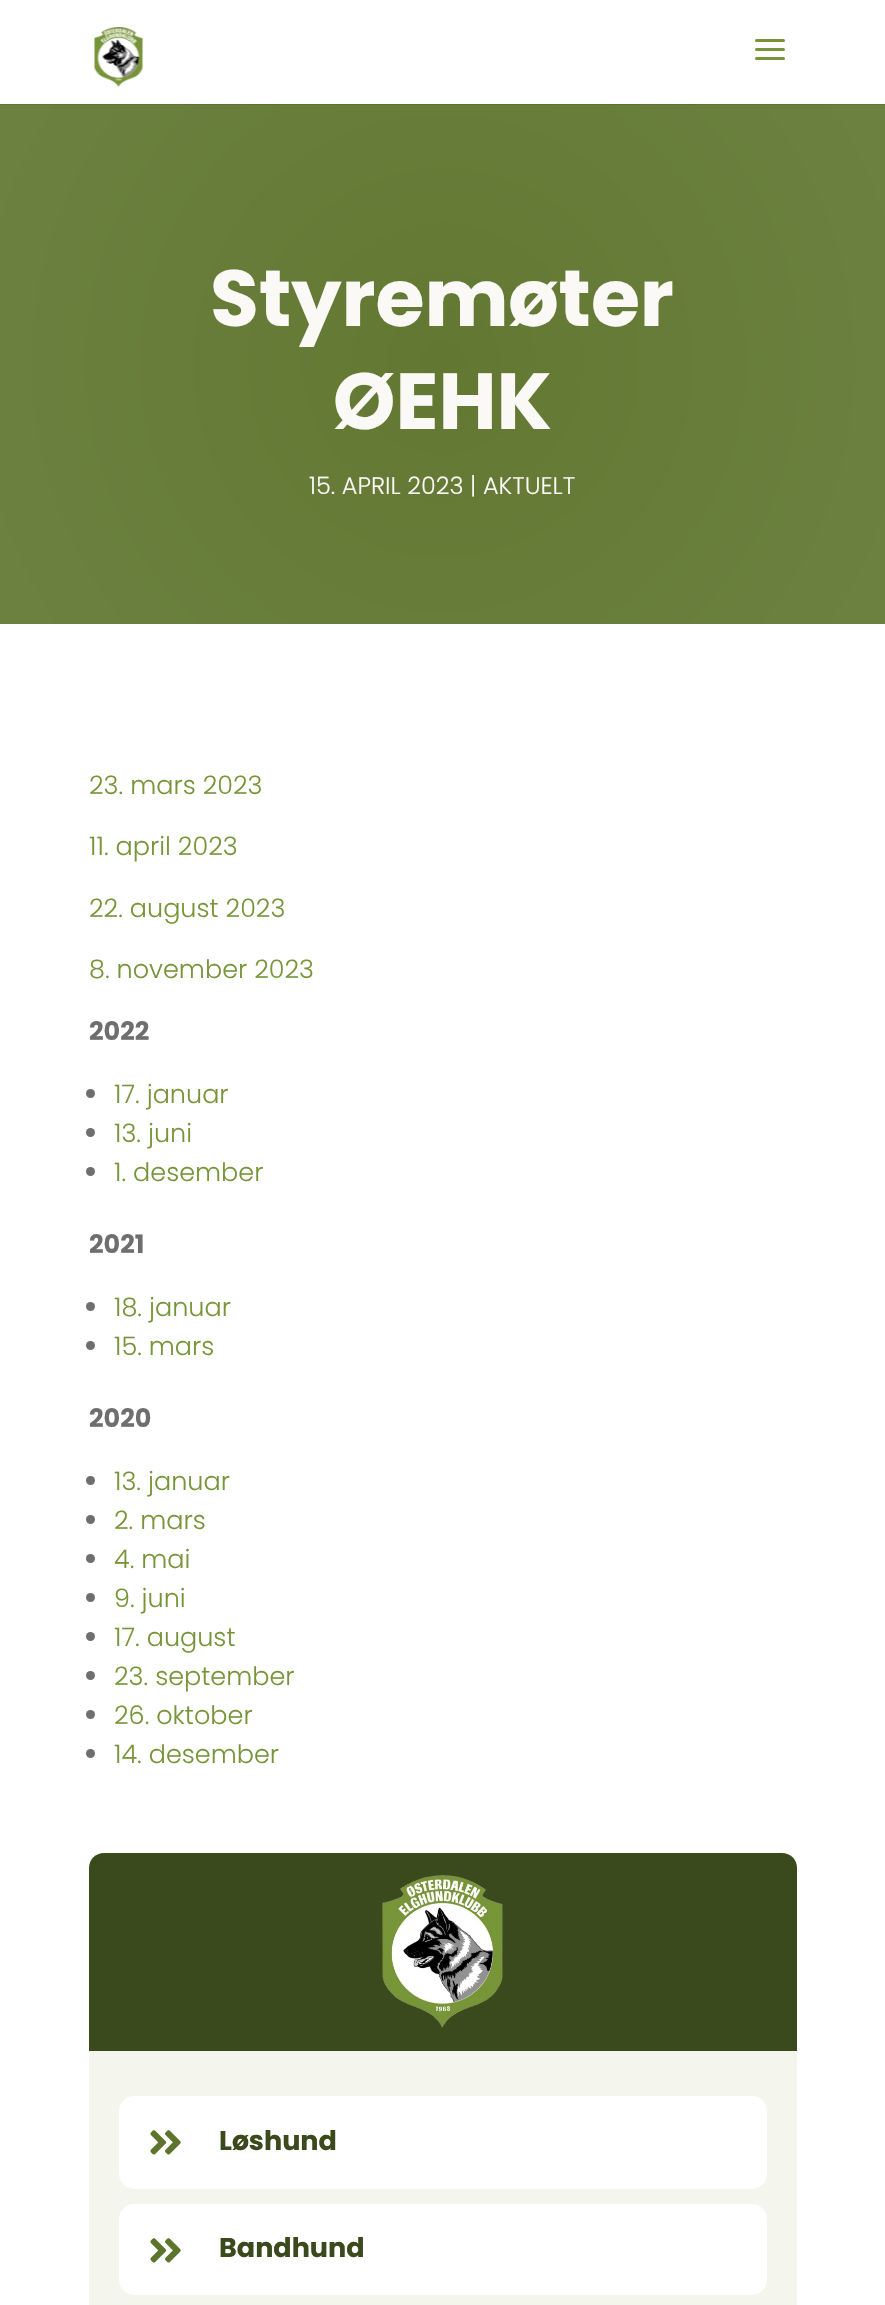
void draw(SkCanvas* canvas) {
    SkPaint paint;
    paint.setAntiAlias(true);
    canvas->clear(0xFFFFFFFF);
    canvas->drawImageRect(SkImages::DeferredFromEncodedData(SkData::MakeFromFileName("img1.png")), SkRect::MakeXYWH(94, 27, 49, 60), SkSamplingOptions());
    paint.setColor(0xFF779538);
    canvas->drawRoundRect(SkRect::MakeXYWH(755, 39, 30, 3), 1.5f, 1.5f, paint);
    canvas->drawRoundRect(SkRect::MakeXYWH(755, 48, 30, 3), 1.5f, 1.5f, paint);
    canvas->drawRoundRect(SkRect::MakeXYWH(755, 57, 30, 3), 1.5f, 1.5f, paint);
    {
        const SkColor colors[] = {0xFF627832, 0xFF6C8140};
        const float stops[] = {0.01f, 0.96f};
        paint.setShader(SkGradientShader::MakeRadial({443, 363}, 514, colors, stops, 2, SkTileMode::kClamp));
        paint.setAlpha(255);
    }
    canvas->drawRect(SkRect::MakeXYWH(0, 105, 885, 519), paint);
    {
        const SkColor colors[] = {0xFF586C2D, 0xFF61743A};
        const float stops[] = {0.01f, 0.96f};
        paint.setShader(SkGradientShader::MakeRadial({443, 363}, 514, colors, stops, 2, SkTileMode::kClamp));
        paint.setAlpha(255);
    }
    canvas->drawRect(SkRect::MakeXYWH(0, 104, 885, 1), paint);
    SkFont font1(fontMgr->matchFamilyStyle("Poppins", SkFontStyle::Bold()), 79.5f);
    font1.setSubpixel(true);
    paint.setShader(nullptr);
    paint.setColor(0xFFFBF9F6);
    canvas->drawString("Styremøter", 210, 326, font1, paint);
    canvas->drawString("ØEHK", 333, 429, font1, paint);
    SkFont font2(fontMgr->matchFamilyStyle("Poppins", SkFontStyle(300, SkFontStyle::kNormal_Width, SkFontStyle::kUpright_Slant)), 24);
    font2.setSubpixel(true);
    canvas->drawString("15. APRIL 2023 | AKTUELT", 309, 494, font2, paint);
    SkFont font3(fontMgr->matchFamilyStyle("Poppins", SkFontStyle(300, SkFontStyle::kNormal_Width, SkFontStyle::kUpright_Slant)), 25.5f);
    font3.setSubpixel(true);
    paint.setColor(0xFF779538);
    canvas->drawString("23. mars 2023", 89, 794, font3, paint);
    canvas->drawString("11. april 2023", 89, 855, font3, paint);
    canvas->drawString("22. august 2023", 89, 917, font3, paint);
    canvas->drawString("8. november 2023", 89, 978, font3, paint);
    SkFont font4(fontMgr->matchFamilyStyle("Poppins", SkFontStyle::Bold()), 25.5f);
    font4.setSubpixel(true);
    paint.setColor(0xFF6E6E6E);
    canvas->drawString("2022", 89, 1040, font4, paint);
    canvas->drawCircle(90.5f, 1093.5f, 4.5f, paint);
    paint.setColor(0xFF779538);
    canvas->drawString("17. januar", 114, 1103, font3, paint);
    paint.setColor(0xFF6E6E6E);
    canvas->drawCircle(90.5f, 1132.5f, 4.5f, paint);
    paint.setColor(0xFF779538);
    canvas->drawString("13. juni", 114, 1142, font3, paint);
    paint.setColor(0xFF6E6E6E);
    canvas->drawCircle(90.5f, 1171.5f, 4.5f, paint);
    paint.setColor(0xFF779538);
    canvas->drawString("1. desember", 114, 1181, font3, paint);
    paint.setColor(0xFF6E6E6E);
    canvas->drawString("2021", 89, 1253, font4, paint);
    canvas->drawCircle(90.5f, 1306.5f, 4.5f, paint);
    paint.setColor(0xFF779538);
    canvas->drawString("18. januar", 114, 1316, font3, paint);
    paint.setColor(0xFF6E6E6E);
    canvas->drawCircle(90.5f, 1345.5f, 4.5f, paint);
    paint.setColor(0xFF779538);
    canvas->drawString("15. mars", 114, 1355, font3, paint);
    paint.setColor(0xFF6E6E6E);
    canvas->drawString("2020", 89, 1427, font4, paint);
    canvas->drawCircle(90.5f, 1480.5f, 4.5f, paint);
    paint.setColor(0xFF779538);
    canvas->drawString("13. januar", 114, 1490, font3, paint);
    paint.setColor(0xFF6E6E6E);
    canvas->drawCircle(90.5f, 1519.5f, 4.5f, paint);
    paint.setColor(0xFF779538);
    canvas->drawString("2. mars", 114, 1529, font3, paint);
    paint.setColor(0xFF6E6E6E);
    canvas->drawCircle(90.5f, 1558.5f, 4.5f, paint);
    paint.setColor(0xFF779538);
    canvas->drawString("4. mai", 114, 1568, font3, paint);
    paint.setColor(0xFF6E6E6E);
    canvas->drawCircle(90.5f, 1597.5f, 4.5f, paint);
    paint.setColor(0xFF779538);
    canvas->drawString("9. juni", 114, 1607, font3, paint);
    paint.setColor(0xFF6E6E6E);
    canvas->drawCircle(90.5f, 1636.5f, 4.5f, paint);
    paint.setColor(0xFF779538);
    canvas->drawString("17. august", 114, 1646, font3, paint);
    paint.setColor(0xFF6E6E6E);
    canvas->drawCircle(90.5f, 1675.5f, 4.5f, paint);
    paint.setColor(0xFF779538);
    canvas->drawString("23. september", 114, 1685, font3, paint);
    paint.setColor(0xFF6E6E6E);
    canvas->drawCircle(90.5f, 1714.5f, 4.5f, paint);
    paint.setColor(0xFF779538);
    canvas->drawString("26. oktober", 114, 1724, font3, paint);
    paint.setColor(0xFF6E6E6E);
    canvas->drawCircle(90.5f, 1753.5f, 4.5f, paint);
    paint.setColor(0xFF779538);
    canvas->drawString("14. desember", 114, 1763, font3, paint);
    paint.setColor(0xFFF4F6EE);
    canvas->drawRoundRect(SkRect::MakeXYWH(89, 1853, 708, 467), 15, 15, paint);
    paint.setColor(0xFF3B4A1C);
    canvas->drawPath(SkPathBuilder().moveTo(104, 1853).lineTo(782, 1853).cubicTo(790.5f, 1853, 797, 1859.5f, 797, 1868).lineTo(797, 2051).lineTo(89, 2051).lineTo(89, 1868).cubicTo(89, 1859.5f, 95.5f, 1853, 104, 1853).close().detach(), paint);
    canvas->drawImageRect(SkImages::DeferredFromEncodedData(SkData::MakeFromFileName("img2.png")), SkRect::MakeXYWH(382, 1875, 121, 153), SkSamplingOptions());
    paint.setColor(0xFFFFFFFF);
    canvas->drawRoundRect(SkRect::MakeXYWH(119, 2096, 648, 93), 15, 15, paint);
    canvas->drawImageRect(SkImages::DeferredFromEncodedData(SkData::MakeFromFileName("img3.png")), SkRect::MakeXYWH(150, 2130, 31, 25), SkSamplingOptions());
    SkFont font5(fontMgr->matchFamilyStyle("Poppins", SkFontStyle::Bold()), 27);
    font5.setSubpixel(true);
    paint.setColor(0xFF3B4A1C);
    canvas->drawString("Løshund", 219, 2150, font5, paint);
    paint.setColor(0xFFFFFFFF);
    canvas->drawRoundRect(SkRect::MakeXYWH(119, 2204, 648, 91), 15, 15, paint);
    canvas->drawImageRect(SkImages::DeferredFromEncodedData(SkData::MakeFromFileName("img3.png")), SkRect::MakeXYWH(150, 2238, 31, 25), SkSamplingOptions());
    paint.setColor(0xFF3B4A1C);
    canvas->drawString("Bandhund", 219, 2257, font5, paint);
}
